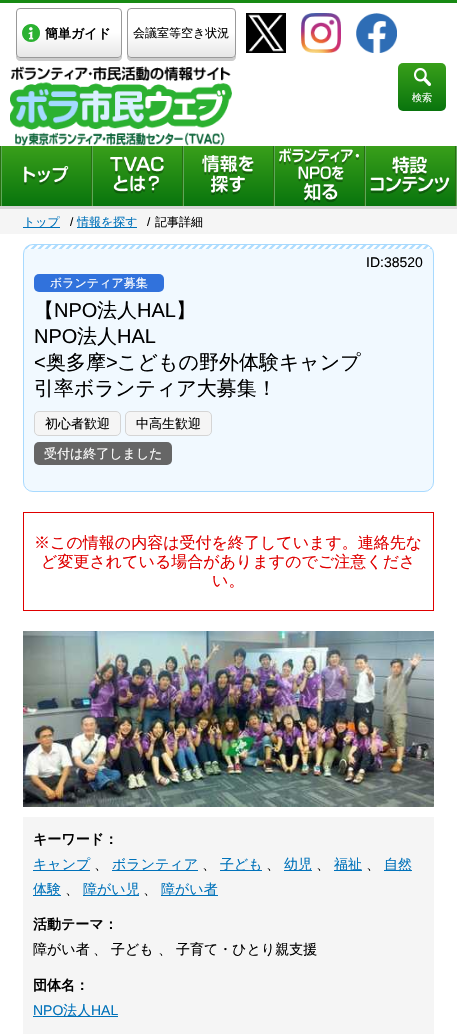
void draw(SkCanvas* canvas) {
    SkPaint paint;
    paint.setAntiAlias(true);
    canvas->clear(0xFFFFFFFF);
    paint.setColor(0xFF178A13);
    canvas->drawRect(SkRect::MakeXYWH(0, 0, 457, 3), paint);
    paint.setColor(0xFFCCCCCC);
    canvas->drawPath(SkPathBuilder().moveTo(16, 54).lineTo(16, 57).cubicTo(16, 59, 18, 61, 20, 61).lineTo(118, 61).cubicTo(120, 61, 122, 59, 122, 57).lineTo(122, 54).cubicTo(122, 56, 120, 58, 118, 58).lineTo(20, 58).cubicTo(18, 58, 16, 56, 16, 54).close().detach(), paint);
    canvas->save();
    canvas->clipPath(SkPathBuilder().moveTo(20, 8).lineTo(118, 8).cubicTo(120, 8, 122, 10, 122, 12).lineTo(122, 54).cubicTo(122, 56, 120, 58, 118, 58).lineTo(20, 58).cubicTo(18, 58, 16, 56, 16, 54).lineTo(16, 12).cubicTo(16, 10, 18, 8, 20, 8).close().detach(), true);
    {
        const SkColor colors[] = {0xFFFFFFFF, 0xFFE6E6E6};
        const float stops[] = {0.5f, 1};
        const SkPoint ends[] = {{69, 9}, {69, 57}};
        paint.setShader(SkGradientShader::MakeLinear(ends, colors, stops, 2, SkTileMode::kClamp));
        paint.setAlpha(255);
    }
    canvas->drawRect(SkRect::MakeXYWH(16, 9, 106, 48), paint);
    canvas->restore();
    paint.setStyle(SkPaint::kStroke_Style);
    paint.setStrokeWidth(1);
    paint.setShader(nullptr);
    paint.setColor(0xFF999999);
    canvas->drawRoundRect(SkRect::MakeXYWH(16.5f, 8.5f, 105, 49), 3.5f, 3.5f, paint);
    canvas->drawImageRect(SkImages::DeferredFromEncodedData(SkData::MakeFromFileName("img1.png")), SkRect::MakeXYWH(22, 24, 18, 18), SkSamplingOptions());
    SkFont font1(fontMgr->matchFamilyStyle("WenQuanYi Zen Hei", SkFontStyle::Bold()), 13);
    font1.setSubpixel(true);
    paint.setStyle(SkPaint::kFill_Style);
    paint.setColor(0xFF000000);
    canvas->drawString("簡単ガイド", 45, 38, font1, paint);
    paint.setColor(0xFFCCCCCC);
    canvas->drawPath(SkPathBuilder().moveTo(127, 54).lineTo(127, 57).cubicTo(127, 59, 129, 61, 131, 61).lineTo(232, 61).cubicTo(234, 61, 236, 59, 236, 57).lineTo(236, 54).cubicTo(236, 56, 234, 58, 232, 58).lineTo(131, 58).cubicTo(129, 58, 127, 56, 127, 54).close().detach(), paint);
    canvas->save();
    canvas->clipPath(SkPathBuilder().moveTo(131, 8).lineTo(232, 8).cubicTo(234, 8, 236, 10, 236, 12).lineTo(236, 54).cubicTo(236, 56, 234, 58, 232, 58).lineTo(131, 58).cubicTo(129, 58, 127, 56, 127, 54).lineTo(127, 12).cubicTo(127, 10, 129, 8, 131, 8).close().detach(), true);
    {
        const SkColor colors[] = {0xFFFFFFFF, 0xFFE6E6E6};
        const float stops[] = {0.5f, 1};
        const SkPoint ends[] = {{182, 9}, {182, 57}};
        paint.setShader(SkGradientShader::MakeLinear(ends, colors, stops, 2, SkTileMode::kClamp));
        paint.setAlpha(255);
    }
    canvas->drawRect(SkRect::MakeXYWH(127, 9, 109, 48), paint);
    canvas->restore();
    paint.setStyle(SkPaint::kStroke_Style);
    paint.setShader(nullptr);
    paint.setColor(0xFF999999);
    canvas->drawRoundRect(SkRect::MakeXYWH(127.5f, 8.5f, 108, 49), 3.5f, 3.5f, paint);
    SkFont font2(fontMgr->matchFamilyStyle("WenQuanYi Zen Hei", SkFontStyle(500, SkFontStyle::kNormal_Width, SkFontStyle::kUpright_Slant)), 12);
    font2.setSubpixel(true);
    paint.setStyle(SkPaint::kFill_Style);
    paint.setColor(0xFF000000);
    canvas->drawString("会議室等空き状況", 133, 37, font2, paint);
    canvas->drawImageRect(SkImages::DeferredFromEncodedData(SkData::MakeFromFileName("img2.png")), SkRect::MakeXYWH(246, 13, 40, 40), SkSamplingOptions());
    canvas->drawImageRect(SkImages::DeferredFromEncodedData(SkData::MakeFromFileName("img3.png")), SkRect::MakeXYWH(301, 13, 40, 40), SkSamplingOptions());
    canvas->drawImageRect(SkImages::DeferredFromEncodedData(SkData::MakeFromFileName("img4.png")), SkRect::MakeXYWH(356, 13, 41, 40), SkSamplingOptions());
    canvas->drawImageRect(SkImages::DeferredFromEncodedData(SkData::MakeFromFileName("img5.png")), SkRect::MakeXYWH(10, 66, 222, 80), SkSamplingOptions());
    {
        const SkColor colors[] = {0xFF399F1A, 0xFF08740D};
        const float stops[] = {0, 1};
        const SkPoint ends[] = {{422, 63}, {422, 111}};
        paint.setShader(SkGradientShader::MakeLinear(ends, colors, stops, 2, SkTileMode::kClamp));
        paint.setAlpha(255);
    }
    canvas->drawRoundRect(SkRect::MakeXYWH(398, 63, 48, 48), 5, 5, paint);
    canvas->drawImageRect(SkImages::DeferredFromEncodedData(SkData::MakeFromFileName("img6.png")), SkRect::MakeXYWH(414, 68, 17, 18), SkSamplingOptions());
    SkFont font3(fontMgr->matchFamilyStyle("WenQuanYi Zen Hei", SkFontStyle(500, SkFontStyle::kNormal_Width, SkFontStyle::kUpright_Slant)), 10);
    font3.setSubpixel(true);
    paint.setShader(nullptr);
    paint.setColor(0xFFFFFFFF);
    canvas->drawString("検索", 412, 101, font3, paint);
    {
        const SkColor colors[] = {0xFF399F1A, 0xFF08740D};
        const float stops[] = {0, 1};
        const SkPoint ends[] = {{229, 146}, {229, 206}};
        paint.setShader(SkGradientShader::MakeLinear(ends, colors, stops, 2, SkTileMode::kClamp));
        paint.setAlpha(255);
    }
    canvas->drawRect(SkRect::MakeXYWH(2, 146, 453, 60), paint);
    paint.setShader(nullptr);
    paint.setColor(0xFF5EA859);
    canvas->drawRect(SkRect::MakeXYWH(456, 146, 1, 60), paint);
    paint.setColor(0xFF286F12);
    canvas->drawRect(SkRect::MakeXYWH(0, 146, 1, 60), paint);
    canvas->drawRect(SkRect::MakeXYWH(91, 146, 1, 60), paint);
    paint.setColor(0xFF5EA859);
    canvas->drawRect(SkRect::MakeXYWH(1, 146, 1, 60), paint);
    canvas->drawImageRect(SkImages::DeferredFromEncodedData(SkData::MakeFromFileName("img7.png")), SkRect::MakeXYWH(24, 166, 45, 19), SkSamplingOptions());
    paint.setColor(0xFF286F12);
    canvas->drawRect(SkRect::MakeXYWH(182, 146, 1, 60), paint);
    paint.setColor(0xFF5EA859);
    canvas->drawRect(SkRect::MakeXYWH(92, 146, 1, 60), paint);
    canvas->drawImageRect(SkImages::DeferredFromEncodedData(SkData::MakeFromFileName("img8.png")), SkRect::MakeXYWH(110, 156, 54, 38), SkSamplingOptions());
    paint.setColor(0xFF286F12);
    canvas->drawRect(SkRect::MakeXYWH(273, 146, 1, 60), paint);
    paint.setColor(0xFF5EA859);
    canvas->drawRect(SkRect::MakeXYWH(183, 146, 1, 60), paint);
    canvas->drawImageRect(SkImages::DeferredFromEncodedData(SkData::MakeFromFileName("img9.png")), SkRect::MakeXYWH(202, 155, 52, 41), SkSamplingOptions());
    paint.setColor(0xFF286F12);
    canvas->drawRect(SkRect::MakeXYWH(364, 146, 1, 60), paint);
    paint.setColor(0xFF5EA859);
    canvas->drawRect(SkRect::MakeXYWH(274, 146, 1, 60), paint);
    canvas->drawImageRect(SkImages::DeferredFromEncodedData(SkData::MakeFromFileName("img10.png")), SkRect::MakeXYWH(279, 148, 80, 55), SkSamplingOptions());
    paint.setColor(0xFF286F12);
    canvas->drawRect(SkRect::MakeXYWH(455, 146, 1, 60), paint);
    paint.setColor(0xFF5EA859);
    canvas->drawRect(SkRect::MakeXYWH(365, 146, 1, 60), paint);
    canvas->drawImageRect(SkImages::DeferredFromEncodedData(SkData::MakeFromFileName("img11.png")), SkRect::MakeXYWH(370, 156, 80, 39), SkSamplingOptions());
    paint.setColor(0xFFF5F5F5);
    canvas->drawRect(SkRect::MakeXYWH(0, 209, 457, 25), paint);
    paint.setColor(0xFFD5D5D5);
    canvas->drawRect(SkRect::MakeXYWH(0, 206, 457, 3), paint);
    paint.setColor(0xFF0072BA);
    canvas->drawRect(SkRect::MakeXYWH(23, 227, 37, 1), paint);
    canvas->drawString("トップ", 23, 226, font2, paint);
    SkFont font4(fontMgr->matchFamilyStyle("Liberation Sans", SkFontStyle::Normal()), 12);
    font4.setSubpixel(true);
    paint.setColor(0xFF000000);
    canvas->drawString("/", 70, 226, font4, paint);
    paint.setColor(0xFF0072BA);
    canvas->drawRect(SkRect::MakeXYWH(77, 227, 60, 1), paint);
    canvas->drawString("情報を探す", 77, 226, font2, paint);
    paint.setColor(0xFF000000);
    canvas->drawString("/", 147, 226, font4, paint);
    canvas->drawString("記事詳細", 155, 226, font2, paint);
    paint.setColor(0xFFF1F9FF);
    canvas->drawRoundRect(SkRect::MakeXYWH(23, 244, 411, 248), 10, 10, paint);
    canvas->drawImageRect(SkImages::DeferredFromEncodedData(SkData::MakeFromFileName("img12.png")), SkRect::MakeXYWH(24, 245, 409, 4), SkSamplingOptions());
    paint.setStyle(SkPaint::kStroke_Style);
    paint.setColor(0xFFA8DAFF);
    canvas->drawRoundRect(SkRect::MakeXYWH(23.5f, 244.5f, 410, 247), 9.5f, 9.5f, paint);
    SkFont font5(fontMgr->matchFamilyStyle("Liberation Sans", SkFontStyle::Normal()), 14);
    font5.setSubpixel(true);
    paint.setStyle(SkPaint::kFill_Style);
    paint.setColor(0xFF000000);
    canvas->drawString("ID:38520", 366, 267, font5, paint);
    paint.setColor(0xFF3172DC);
    canvas->drawRoundRect(SkRect::MakeXYWH(34, 274, 130, 18), 5, 5, paint);
    paint.setColor(0xFFFFFFFF);
    canvas->drawString("ボランティア募集", 50, 287, font2, paint);
    SkFont font6(fontMgr->matchFamilyStyle("WenQuanYi Zen Hei", SkFontStyle(500, SkFontStyle::kNormal_Width, SkFontStyle::kUpright_Slant)), 20);
    font6.setSubpixel(true);
    paint.setColor(0xFF000000);
    canvas->drawString("【", 34, 317, font6, paint);
    SkFont font7(fontMgr->matchFamilyStyle("Liberation Sans", SkFontStyle::Normal()), 20);
    font7.setSubpixel(true);
    canvas->drawString("NPO", 54, 317, font7, paint);
    canvas->drawString("法人", 97, 317, font6, paint);
    canvas->drawString("HAL", 137, 317, font7, paint);
    canvas->drawString("】", 176, 317, font6, paint);
    canvas->drawString("NPO", 34, 343, font7, paint);
    canvas->drawString("法人", 77, 343, font6, paint);
    canvas->drawString("HAL", 117, 343, font7, paint);
    canvas->drawString("<", 34, 369, font7, paint);
    canvas->drawString("奥多摩", 46, 369, font6, paint);
    canvas->drawString(">", 106, 369, font7, paint);
    canvas->drawString("こどもの野外体験キャンプ", 117, 369, font6, paint);
    canvas->drawString("引率ボランティア大募集！", 34, 395, font6, paint);
    paint.setColor(0xFFF5F5F5);
    canvas->drawRoundRect(SkRect::MakeXYWH(34.5f, 411.5f, 86, 24), 4.5f, 4.5f, paint);
    paint.setStyle(SkPaint::kStroke_Style);
    paint.setColor(0xFFD5D5D5);
    canvas->drawRoundRect(SkRect::MakeXYWH(34.5f, 411.5f, 86, 24), 4.5f, 4.5f, paint);
    SkFont font8(fontMgr->matchFamilyStyle("WenQuanYi Zen Hei", SkFontStyle(500, SkFontStyle::kNormal_Width, SkFontStyle::kUpright_Slant)), 13);
    font8.setSubpixel(true);
    paint.setStyle(SkPaint::kFill_Style);
    paint.setColor(0xFF000000);
    canvas->drawString("初心者歓迎", 45, 428, font8, paint);
    paint.setColor(0xFFF5F5F5);
    canvas->drawRoundRect(SkRect::MakeXYWH(125.5f, 411.5f, 86, 24), 4.5f, 4.5f, paint);
    paint.setStyle(SkPaint::kStroke_Style);
    paint.setColor(0xFFD5D5D5);
    canvas->drawRoundRect(SkRect::MakeXYWH(125.5f, 411.5f, 86, 24), 4.5f, 4.5f, paint);
    paint.setStyle(SkPaint::kFill_Style);
    paint.setColor(0xFF000000);
    canvas->drawString("中高生歓迎", 136, 428, font8, paint);
    paint.setColor(0xFF666666);
    canvas->drawRoundRect(SkRect::MakeXYWH(34, 442, 138, 23), 5, 5, paint);
    paint.setColor(0xFFFFFFFF);
    canvas->drawString("受付は終了しました", 44, 458, font8, paint);
    paint.setStyle(SkPaint::kStroke_Style);
    paint.setColor(0xFFDF0000);
    canvas->drawRect(SkRect::MakeXYWH(23.5f, 512.5f, 410, 98), paint);
    SkFont font9(fontMgr->matchFamilyStyle("WenQuanYi Zen Hei", SkFontStyle(500, SkFontStyle::kNormal_Width, SkFontStyle::kUpright_Slant)), 16);
    font9.setSubpixel(true);
    paint.setStyle(SkPaint::kFill_Style);
    canvas->drawString("※この情報の内容は受付を終了しています。連絡先な", 34, 548, font9, paint);
    canvas->drawString("ど変更されている場合がありますのでご注意くださ", 41, 567, font9, paint);
    canvas->drawString("い。", 212, 586, font9, paint);
    canvas->drawImageRect(SkImages::DeferredFromEncodedData(SkData::MakeFromFileName("img13.png")), SkRect::MakeXYWH(23, 631, 411, 176), SkSamplingOptions());
    paint.setColor(0xFFF5F5F5);
    canvas->drawRect(SkRect::MakeXYWH(23, 817, 411, 217), paint);
    SkFont font10(fontMgr->matchFamilyStyle("WenQuanYi Zen Hei", SkFontStyle::Bold()), 14);
    font10.setSubpixel(true);
    paint.setColor(0xFF000000);
    canvas->drawString("キーワード：", 33, 844, font10, paint);
    paint.setColor(0xFF0072BA);
    canvas->drawRect(SkRect::MakeXYWH(33, 870, 57, 1), paint);
    SkFont font11(fontMgr->matchFamilyStyle("WenQuanYi Zen Hei", SkFontStyle(500, SkFontStyle::kNormal_Width, SkFontStyle::kUpright_Slant)), 14);
    font11.setSubpixel(true);
    canvas->drawString("キャンプ", 33, 869, font11, paint);
    paint.setColor(0xFF000000);
    canvas->drawString("、", 94, 869, font11, paint);
    paint.setColor(0xFF0072BA);
    canvas->drawRect(SkRect::MakeXYWH(112, 870, 86, 1), paint);
    canvas->drawString("ボランティア", 112, 869, font11, paint);
    paint.setColor(0xFF000000);
    canvas->drawString("、", 202, 869, font11, paint);
    paint.setColor(0xFF0072BA);
    canvas->drawRect(SkRect::MakeXYWH(220, 870, 42, 1), paint);
    canvas->drawString("子ども", 220, 869, font11, paint);
    paint.setColor(0xFF000000);
    canvas->drawString("、", 266, 869, font11, paint);
    paint.setColor(0xFF0072BA);
    canvas->drawRect(SkRect::MakeXYWH(284, 870, 28, 1), paint);
    canvas->drawString("幼児", 284, 869, font11, paint);
    paint.setColor(0xFF000000);
    canvas->drawString("、", 316, 869, font11, paint);
    paint.setColor(0xFF0072BA);
    canvas->drawRect(SkRect::MakeXYWH(334, 870, 28, 1), paint);
    canvas->drawString("福祉", 334, 869, font11, paint);
    paint.setColor(0xFF000000);
    canvas->drawString("、", 366, 869, font11, paint);
    paint.setColor(0xFF0072BA);
    canvas->drawRect(SkRect::MakeXYWH(384, 870, 28, 1), paint);
    canvas->drawString("自然", 384, 869, font11, paint);
    canvas->drawRect(SkRect::MakeXYWH(33, 895, 28, 1), paint);
    canvas->drawString("体験", 33, 894, font11, paint);
    paint.setColor(0xFF000000);
    canvas->drawString("、", 65, 894, font11, paint);
    paint.setColor(0xFF0072BA);
    canvas->drawRect(SkRect::MakeXYWH(83, 895, 56, 1), paint);
    canvas->drawString("障がい児", 83, 894, font11, paint);
    paint.setColor(0xFF000000);
    canvas->drawString("、", 143, 894, font11, paint);
    paint.setColor(0xFF0072BA);
    canvas->drawRect(SkRect::MakeXYWH(161, 895, 57, 1), paint);
    canvas->drawString("障がい者", 161, 894, font11, paint);
    paint.setColor(0xFF000000);
    canvas->drawString("活動テーマ：", 33, 929, font10, paint);
    canvas->drawString("障がい者", 33, 954, font11, paint);
    canvas->drawString("、", 93, 954, font11, paint);
    canvas->drawString("子ども", 111, 954, font11, paint);
    canvas->drawString("、", 158, 954, font11, paint);
    canvas->drawString("子育て・ひとり親支援", 176, 954, font11, paint);
    canvas->drawString("団体名：", 33, 990, font10, paint);
    paint.setColor(0xFF0072BA);
    canvas->drawString("NPO", 33, 1015, font5, paint);
    canvas->drawRect(SkRect::MakeXYWH(33, 1016, 85, 1), paint);
    canvas->drawString("法人", 63, 1015, font11, paint);
    canvas->drawString("HAL", 91, 1015, font5, paint);
}
